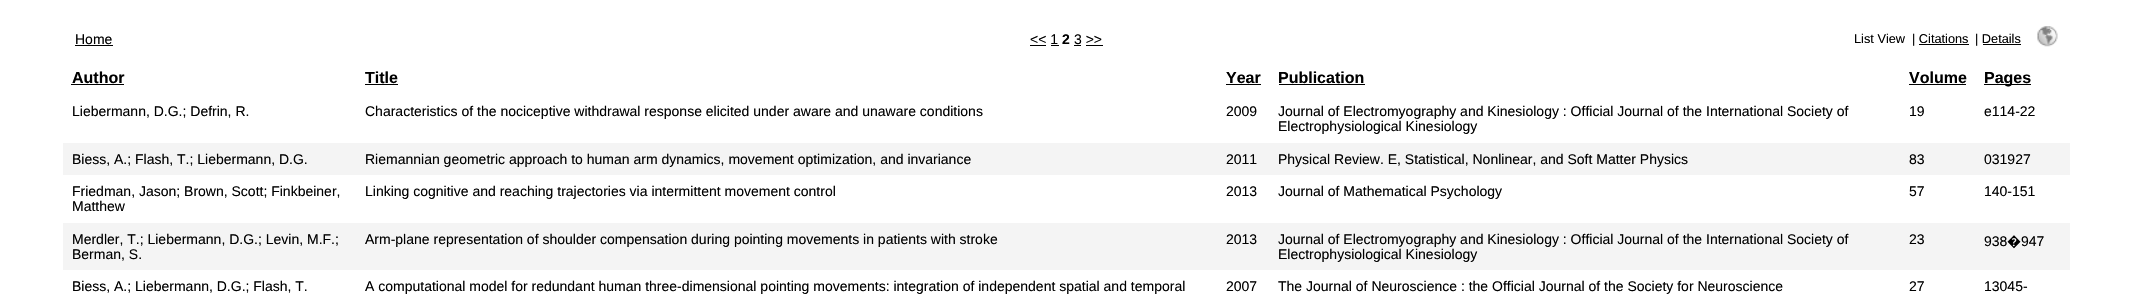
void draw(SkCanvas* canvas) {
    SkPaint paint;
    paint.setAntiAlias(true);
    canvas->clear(0xFFFFFFFF);
    SkFont font1(fontMgr->matchFamilyStyle("Liberation Sans", SkFontStyle::Normal()), 14);
    font1.setSubpixel(true);
    paint.setColor(0xFF000000);
    canvas->drawString("Home", 75, 44, font1, paint);
    canvas->drawRect(SkRect::MakeXYWH(75, 45, 38, 1), paint);
    canvas->drawString("<< 1", 1030, 44, font1, paint);
    canvas->drawRect(SkRect::MakeXYWH(1030, 45, 16, 1), paint);
    SkFont font2(fontMgr->matchFamilyStyle("Liberation Sans", SkFontStyle::Bold()), 14);
    font2.setSubpixel(true);
    canvas->drawString("2", 1062, 44, font2, paint);
    canvas->drawString("3 >>", 1074, 44, font1, paint);
    canvas->drawRect(SkRect::MakeXYWH(1074, 45, 7, 1), paint);
    canvas->drawRect(SkRect::MakeXYWH(1051, 45, 8, 1), paint);
    canvas->drawRect(SkRect::MakeXYWH(1086, 45, 17, 1), paint);
    SkFont font3(fontMgr->matchFamilyStyle("Liberation Sans", SkFontStyle::Normal()), 12.75f);
    font3.setSubpixel(true);
    canvas->drawString("List View", 1854, 43, font3, paint);
    canvas->drawString("| Citations", 1912, 43, font3, paint);
    canvas->drawRect(SkRect::MakeXYWH(1919, 44, 50, 1), paint);
    canvas->drawString("| Details", 1975, 43, font3, paint);
    canvas->drawRect(SkRect::MakeXYWH(1983, 44, 38, 1), paint);
    canvas->drawImageRect(SkImages::DeferredFromEncodedData(SkData::MakeFromFileName("img1.png")), SkRect::MakeXYWH(2037, 26, 21, 21), SkSamplingOptions());
    SkFont font4(fontMgr->matchFamilyStyle("Liberation Sans", SkFontStyle::Bold()), 16);
    font4.setSubpixel(true);
    canvas->drawString("Author", 72, 83, font4, paint);
    canvas->drawRect(SkRect::MakeXYWH(71, 84, 53, 1), paint);
    canvas->drawString("Title", 365, 83, font4, paint);
    canvas->drawRect(SkRect::MakeXYWH(365, 84, 33, 1), paint);
    canvas->drawString("Year", 1226, 83, font4, paint);
    canvas->drawRect(SkRect::MakeXYWH(1226, 84, 35, 1), paint);
    canvas->drawString("Publication", 1278, 83, font4, paint);
    canvas->drawRect(SkRect::MakeXYWH(1279, 84, 86, 1), paint);
    canvas->drawString("Volume", 1909, 83, font4, paint);
    canvas->drawRect(SkRect::MakeXYWH(1909, 84, 57, 1), paint);
    canvas->drawRect(SkRect::MakeXYWH(1984, 84, 47, 1), paint);
    canvas->drawString("Pages", 1984, 83, font4, paint);
    canvas->drawString("Liebermann, D.G.; Defrin, R.", 72, 116, font1, paint);
    canvas->drawString("Characteristics of the nociceptive withdrawal response elicited under aware and unaware conditions", 365, 116, font1, paint);
    canvas->drawString("2009", 1226, 116, font1, paint);
    canvas->drawString("Journal of Electromyography and Kinesiology : Official Journal of the International Society of", 1278, 116, font1, paint);
    canvas->drawString("Electrophysiological Kinesiology", 1278, 131, font1, paint);
    canvas->drawString("19", 1909, 116, font1, paint);
    canvas->drawString("e114-22", 1984, 116, font1, paint);
    paint.setColor(0xFFF4F4F4);
    canvas->drawRect(SkRect::MakeXYWH(63, 143, 2007, 32), paint);
    paint.setColor(0xFF000000);
    canvas->drawString("Biess, A.; Flash, T.; Liebermann, D.G.", 72, 164, font1, paint);
    canvas->drawString("Riemannian geometric approach to human arm dynamics, movement optimization, and invariance", 365, 164, font1, paint);
    canvas->drawString("2011", 1226, 164, font1, paint);
    canvas->drawString("Physical Review. E, Statistical, Nonlinear, and Soft Matter Physics", 1278, 164, font1, paint);
    canvas->drawString("83", 1909, 164, font1, paint);
    canvas->drawString("031927", 1984, 164, font1, paint);
    canvas->drawString("Friedman, Jason; Brown, Scott; Finkbeiner,", 72, 196, font1, paint);
    canvas->drawString("Matthew", 72, 211, font1, paint);
    canvas->drawString("Linking cognitive and reaching trajectories via intermittent movement control", 365, 196, font1, paint);
    canvas->drawString("2013", 1226, 196, font1, paint);
    canvas->drawString("Journal of Mathematical Psychology", 1278, 196, font1, paint);
    canvas->drawString("57", 1909, 196, font1, paint);
    canvas->drawString("140-151", 1984, 196, font1, paint);
    paint.setColor(0xFFF4F4F4);
    canvas->drawRect(SkRect::MakeXYWH(63, 223, 2007, 47), paint);
    paint.setColor(0xFF000000);
    canvas->drawString("Merdler, T.; Liebermann, D.G.; Levin, M.F.;", 72, 244, font1, paint);
    canvas->drawString("Berman, S.", 72, 259, font1, paint);
    canvas->drawString("Arm-plane representation of shoulder compensation during pointing movements in patients with stroke", 365, 244, font1, paint);
    canvas->drawString("2013", 1226, 244, font1, paint);
    canvas->drawString("Journal of Electromyography and Kinesiology : Official Journal of the International Society of", 1278, 244, font1, paint);
    canvas->drawString("Electrophysiological Kinesiology", 1278, 259, font1, paint);
    canvas->drawString("23", 1909, 244, font1, paint);
    canvas->drawString("938", 1984, 246, font1, paint);
    SkFont font5(fontMgr->matchFamilyStyle("Noto Sans", SkFontStyle::Normal()), 14);
    font5.setSubpixel(true);
    canvas->drawString("�", 2007, 246, font5, paint);
    canvas->drawString("947", 2021, 246, font1, paint);
    canvas->drawString("Biess, A.; Liebermann, D.G.; Flash, T.", 72, 291, font1, paint);
    canvas->drawString("A computational model for redundant human three-dimensional pointing movements: integration of independent spatial and temporal", 365, 291, font1, paint);
    canvas->drawString("2007", 1226, 291, font1, paint);
    canvas->drawString("The Journal of Neuroscience : the Official Journal of the Society for Neuroscience", 1278, 291, font1, paint);
    canvas->drawString("27", 1909, 291, font1, paint);
    canvas->drawString("13045-", 1984, 291, font1, paint);
}
